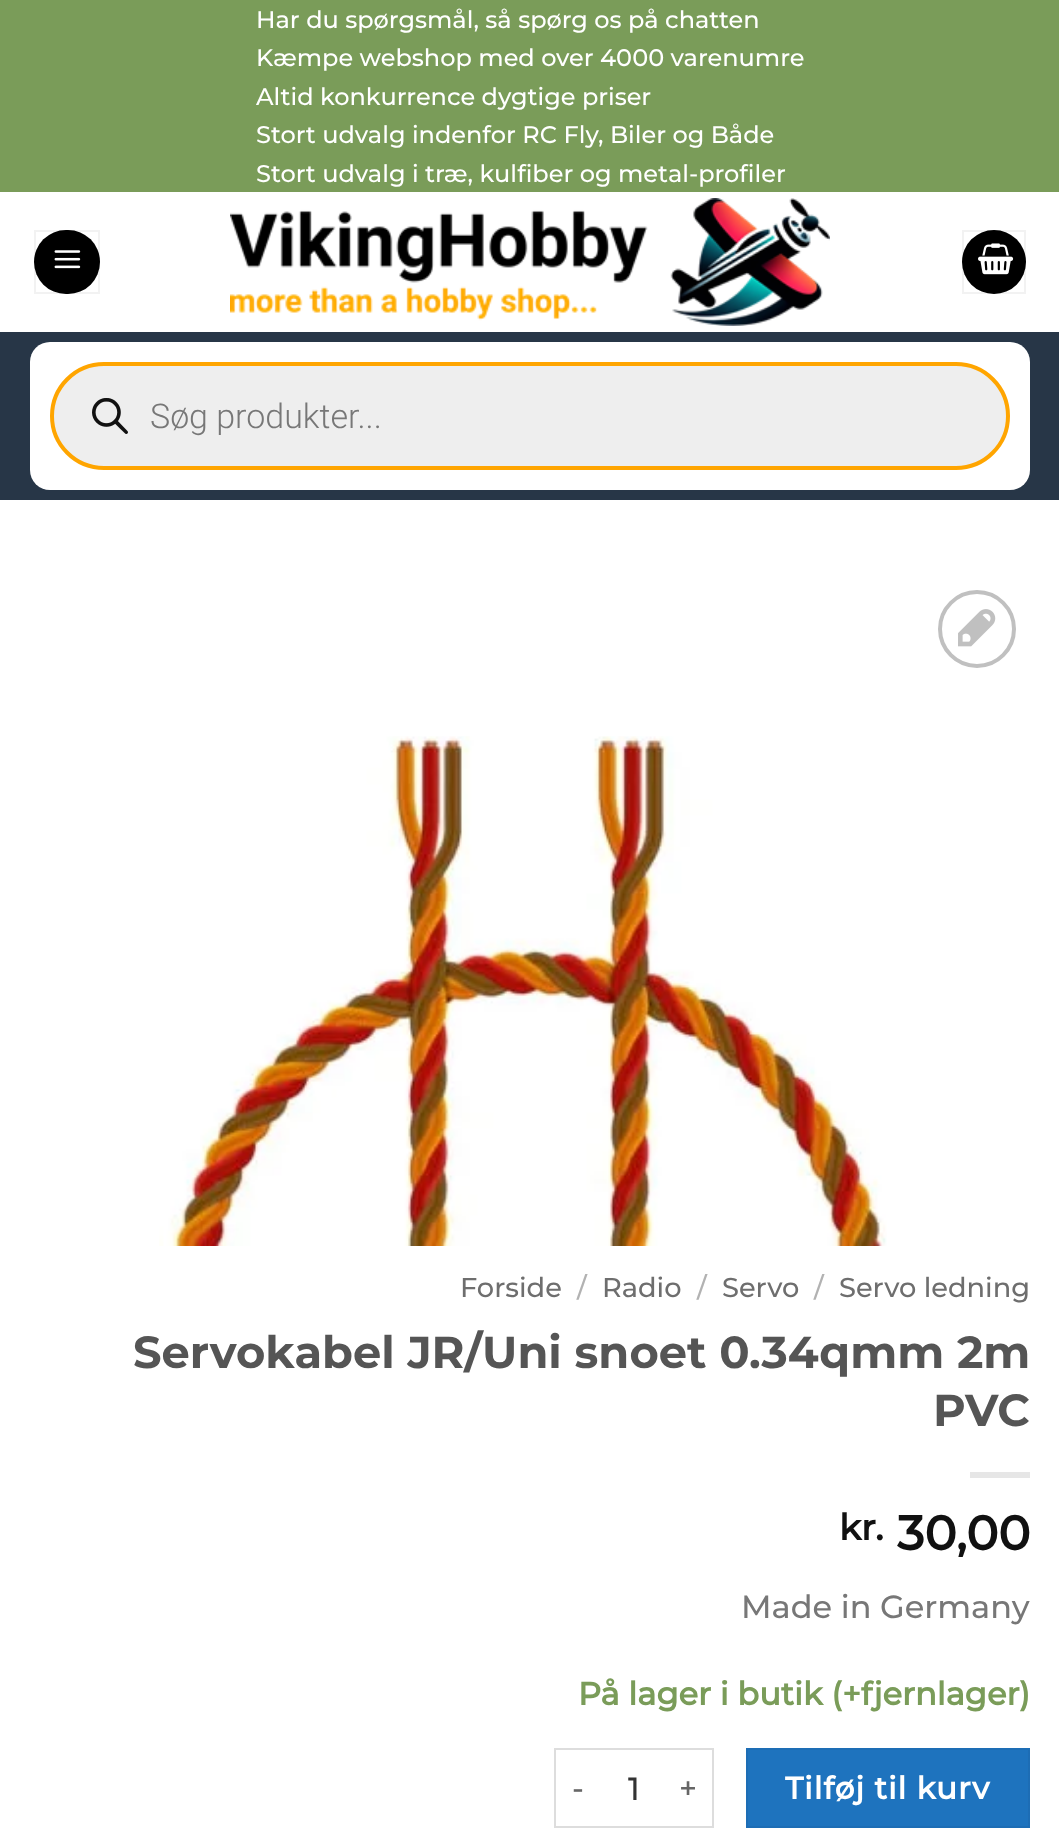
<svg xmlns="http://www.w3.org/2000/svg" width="1059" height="1842">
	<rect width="100%" height="100%" fill="#FFFFFF" />
	<rect x="0" y="0" width="1059" height="192" fill="#7A9C59" />
	<g font-family="Montserrat" font-size="24" font-weight="500" fill="#FFFFFF">
		<text x="256" y="28">Har du spørgsmål, så spørg os på chatten</text>
		<text x="256" y="66">Kæmpe webshop med over 4000 varenumre</text>
		<text x="256" y="105">Altid konkurrence dygtige priser</text>
		<text x="256" y="143">Stort udvalg indenfor RC Fly, Biler og Både</text>
		<text x="256" y="182">Stort udvalg i træ, kulfiber og metal-profiler</text>
	</g>
	<rect x="34" y="230" width="66" height="64" rx="32" fill="#000000" />
	<rect x="35" y="231" width="64" height="62" fill="none" stroke="#000000" stroke-opacity="0.05" stroke-width="2" />
	<image x="54" y="250" width="27" height="19" href="assets/img1.png" />
	<image x="230" y="198" width="600" height="128" href="assets/img2.png" />
	<circle cx="994" cy="262" r="32" fill="#000000" />
	<rect x="963" y="231" width="62" height="62" fill="none" stroke="#000000" stroke-opacity="0.05" stroke-width="2" />
	<image x="978" y="243" width="36" height="32" href="assets/img3.png" />
	<rect x="0" y="332" width="1059" height="168" fill="#273647" />
	<rect x="30" y="342" width="1000" height="148" rx="20" fill="#FFFFFF" />
	<rect x="52" y="364" width="956" height="104" rx="52" fill="#EEEEEE" stroke="#FFA500" stroke-width="4" />
	<image x="92" y="398" width="36" height="36" href="assets/img4.png" />
	<text x="150" y="428" font-family="Roboto" font-size="34" font-weight="300" fill="#777777">Søg produkter...</text>
	<circle cx="977" cy="629" r="37" fill="none" stroke="#C0C0C0" stroke-width="4" />
	<image x="958" y="609" width="38" height="38" href="assets/img5.png" />
	<image x="159" y="736" width="728" height="510" href="assets/img6.png" />
	<text x="460" y="1297" font-family="Montserrat" font-size="27.25" font-weight="500" fill="#6E6E6E">Forside</text>
	<text x="577" y="1297" font-family="Montserrat" font-size="27.25" font-weight="500" fill="#B2B2B2">/</text>
	<text x="602" y="1297" font-family="Montserrat" font-size="27.25" font-weight="500" fill="#6E6E6E">Radio</text>
	<text x="697" y="1297" font-family="Montserrat" font-size="27.25" font-weight="500" fill="#B2B2B2">/</text>
	<text x="722" y="1297" font-family="Montserrat" font-size="27.25" font-weight="500" fill="#6E6E6E">Servo</text>
	<text x="814" y="1297" font-family="Montserrat" font-size="27.25" font-weight="500" fill="#B2B2B2">/</text>
	<text x="839" y="1297" font-family="Montserrat" font-size="27.25" font-weight="500" fill="#6E6E6E">Servo ledning</text>
	<g font-family="Montserrat" font-size="44.8" font-weight="700" fill="#555555">
		<text x="133" y="1368">Servokabel JR/Uni snoet 0.34qmm 2m</text>
		<text x="933" y="1426">PVC</text>
	</g>
	<rect x="970" y="1472" width="60" height="6" fill="#E6E6E6" />
	<text x="839" y="1540" font-family="'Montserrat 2'" font-size="36" font-weight="700" fill="#111111">kr.</text>
	<text x="897" y="1550" font-family="'Montserrat 2'" font-size="48" font-weight="700" fill="#111111">30,00</text>
	<text x="741" y="1618" font-family="Montserrat" font-size="32" font-weight="500" fill="#777777">Made in Germany</text>
	<text x="578" y="1705" font-family="'Montserrat 2'" font-size="32" font-weight="700" fill="#7A9C59">På lager i butik (+fjernlager)</text>
	<rect x="554" y="1748" width="160" height="2" fill="#DDDDDD" />
	<rect x="554" y="1826" width="112" height="2" fill="#DDDDDD" />
	<rect x="554" y="1748" width="2" height="80" fill="#DDDDDD" />
	<text x="572" y="1799" font-family="Montserrat" font-size="31" font-weight="500" letter-spacing="0.9" fill="#666666">-</text>
	<text x="628" y="1800" font-family="Montserrat" font-size="32" font-weight="500" fill="#333333">1</text>
	<rect x="712" y="1748" width="2" height="80" fill="#DDDDDD" />
	<rect x="666" y="1826" width="48" height="2" fill="#DDDDDD" />
	<text x="679" y="1799" font-family="Montserrat" font-size="31" font-weight="500" letter-spacing="0.9" fill="#666666">+</text>
	<rect x="747" y="1749" width="282" height="78" fill="#1E73BE" stroke="#1D6DB5" stroke-width="2" />
	<text x="785" y="1799" font-family="'Montserrat 2'" font-size="31" font-weight="700" letter-spacing="0.9" fill="#FFFFFF">Tilføj til kurv</text>
</svg>
